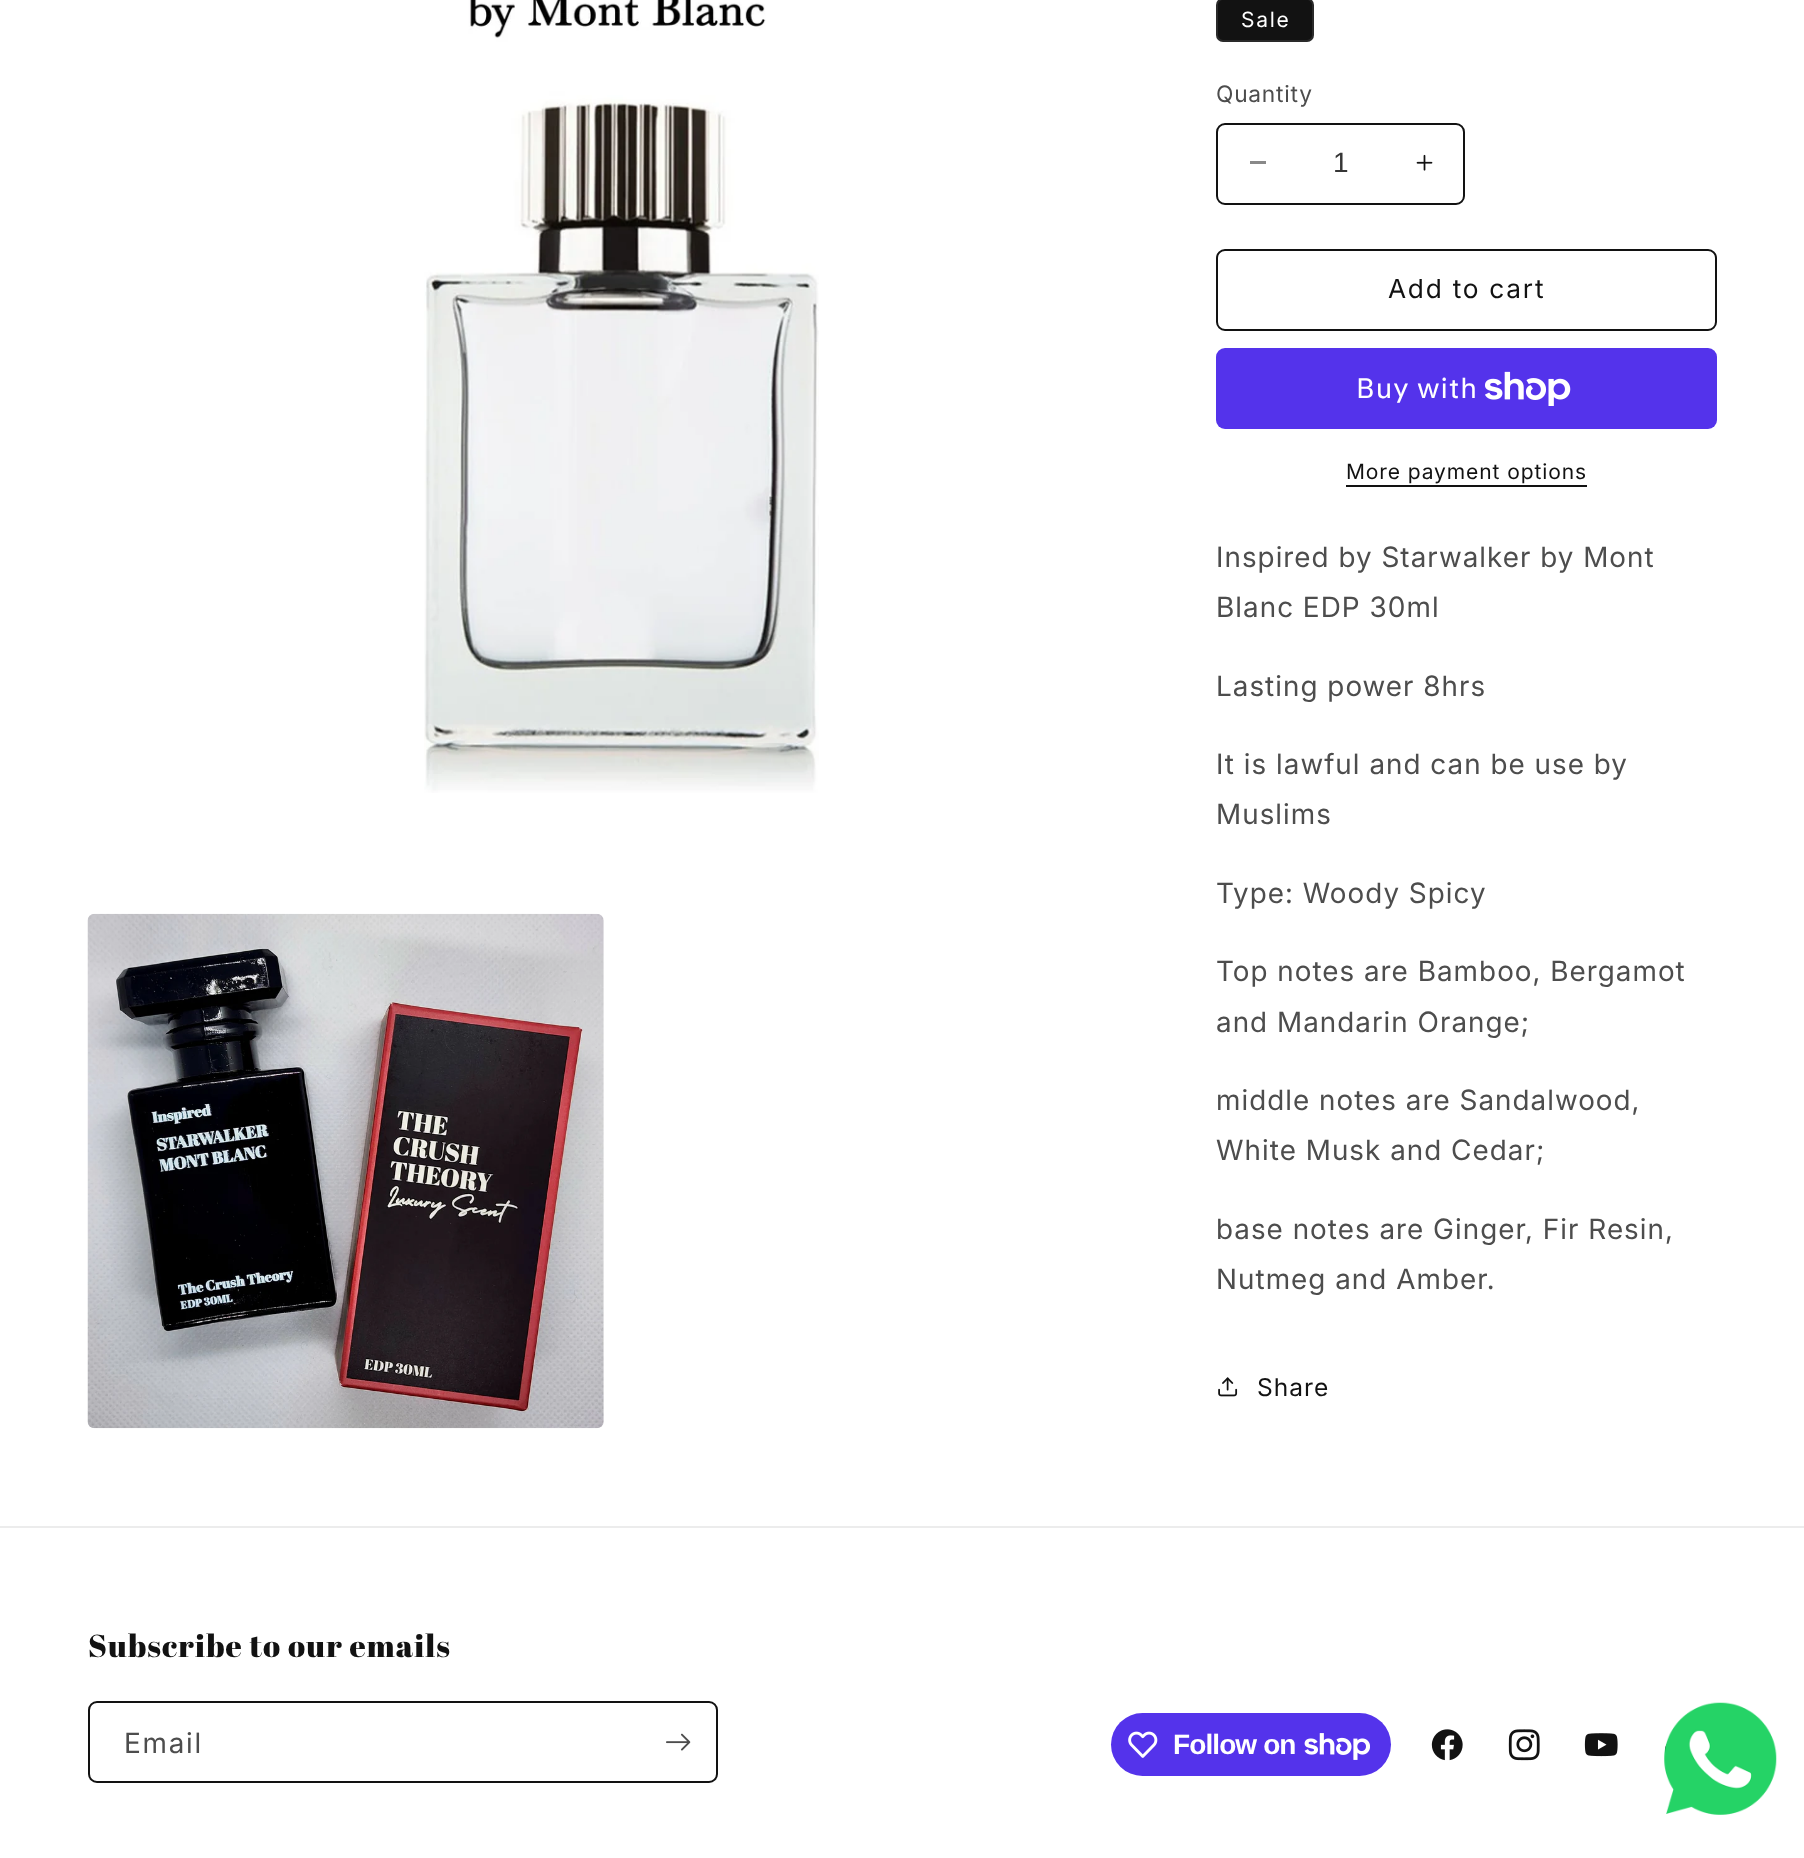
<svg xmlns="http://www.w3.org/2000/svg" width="1804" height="1858">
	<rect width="100%" height="100%" fill="#FFFFFF" />
	<image x="424" y="0" width="395" height="793" href="assets/img1.png" />
	<image x="87" y="913" width="517" height="516" href="assets/img2.png" />
	<rect x="1216" y="-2" width="98" height="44" rx="7" fill="#121212" />
	<rect x="1217" y="-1" width="96" height="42" rx="6" fill="none" stroke="#FFFFFF" stroke-opacity="0.1" stroke-width="2" />
	<text x="1241" y="27" font-family="Inter" font-size="21" letter-spacing="1.75" fill="#FFFFFF">Sale</text>
	<text x="1216" y="102" font-family="Inter" font-size="22.75" letter-spacing="0.75" fill="#4D4D4D">Quantity</text>
	<rect x="1250" y="161" width="16" height="3" fill="#898989" />
	<image x="1416" y="154" width="17" height="17" href="assets/img3.png" />
	<rect x="1217" y="124" width="247" height="80" rx="8" fill="none" stroke="#121212" stroke-width="2" />
	<text x="1333" y="172" font-family="Liberation Sans" font-size="28" fill="#363636">1</text>
	<rect x="1217" y="250" width="499" height="80" rx="8" fill="none" stroke="#121212" stroke-width="2" />
	<text x="1388" y="298" font-family="Inter" font-size="26.25" letter-spacing="1.75" fill="#121212">Add to cart</text>
	<rect x="1216" y="348" width="501" height="81" rx="9" fill="#5433EB" />
	<text x="1356" y="398" font-family="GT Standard" font-size="28" letter-spacing="1.05" fill="#FFFFFF">Buy with</text>
	<image x="1485" y="371" width="86" height="35" href="assets/img4.png" />
	<text x="1346" y="479" font-family="Inter" font-size="21" letter-spacing="0.9" fill="#121212">More payment options</text>
	<rect x="1346" y="485" width="241" height="2" fill="#121212" />
	<g font-family="'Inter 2'" font-size="28" letter-spacing="1.05" fill="#4D4D4D">
		<text x="1216" y="567">Inspired by Starwalker by Mont</text>
		<text x="1216" y="617">Blanc EDP 30ml</text>
		<text x="1216" y="696">Lasting power 8hrs</text>
		<text x="1216" y="774">It is lawful and can be use by</text>
		<text x="1216" y="824">Muslims</text>
		<text x="1216" y="903">Type: Woody Spicy</text>
		<text x="1216" y="981">Top notes are Bamboo, Bergamot</text>
		<text x="1216" y="1032">and Mandarin Orange;</text>
		<text x="1216" y="1110">middle notes are Sandalwood,</text>
		<text x="1216" y="1160">White Musk and Cedar;</text>
		<text x="1216" y="1239">base notes are Ginger, Fir Resin,</text>
		<text x="1216" y="1289">Nutmeg and Amber.</text>
	</g>
	<image x="1218" y="1377" width="20" height="20" href="assets/img5.png" />
	<text x="1257" y="1396" font-family="Inter" font-size="24.5" letter-spacing="1.05" fill="#121212">Share</text>
	<rect x="0" y="1526" width="1804" height="2" fill="#ECECEC" />
	<text x="88" y="1657" font-family="Abril Fatface" font-size="31.5" letter-spacing="1.05" fill="#121212">Subscribe to our emails</text>
	<rect x="89" y="1702" width="628" height="80" rx="8" fill="none" stroke="#121212" stroke-width="2" />
	<text x="124" y="1753" font-family="'Inter 2'" font-size="28" letter-spacing="1.75" fill="#4D4D4D">Email</text>
	<image x="666" y="1733" width="25" height="18" href="assets/img6.png" />
	<rect x="1111" y="1713" width="280" height="63" rx="31.5" fill="#5433EB" />
	<image x="1128" y="1731" width="30" height="27" href="assets/img7.png" />
	<text x="1173" y="1754" font-family="Liberation Sans" font-size="28" font-weight="700" letter-spacing="-0.9" fill="#FFFFFF">Follow on</text>
	<image x="1304" y="1733" width="66" height="27" href="assets/img8.png" />
	<image x="1431" y="1729" width="32" height="32" href="assets/img9.png" />
	<image x="1508" y="1729" width="32" height="32" href="assets/img10.png" />
	<image x="1584" y="1733" width="34" height="24" href="assets/img11.png" />
	<image x="1665" y="1744" width="2" height="10" href="assets/img12.png" />
	<image x="1664" y="1702" width="113" height="113" href="assets/img13.png" />
</svg>
